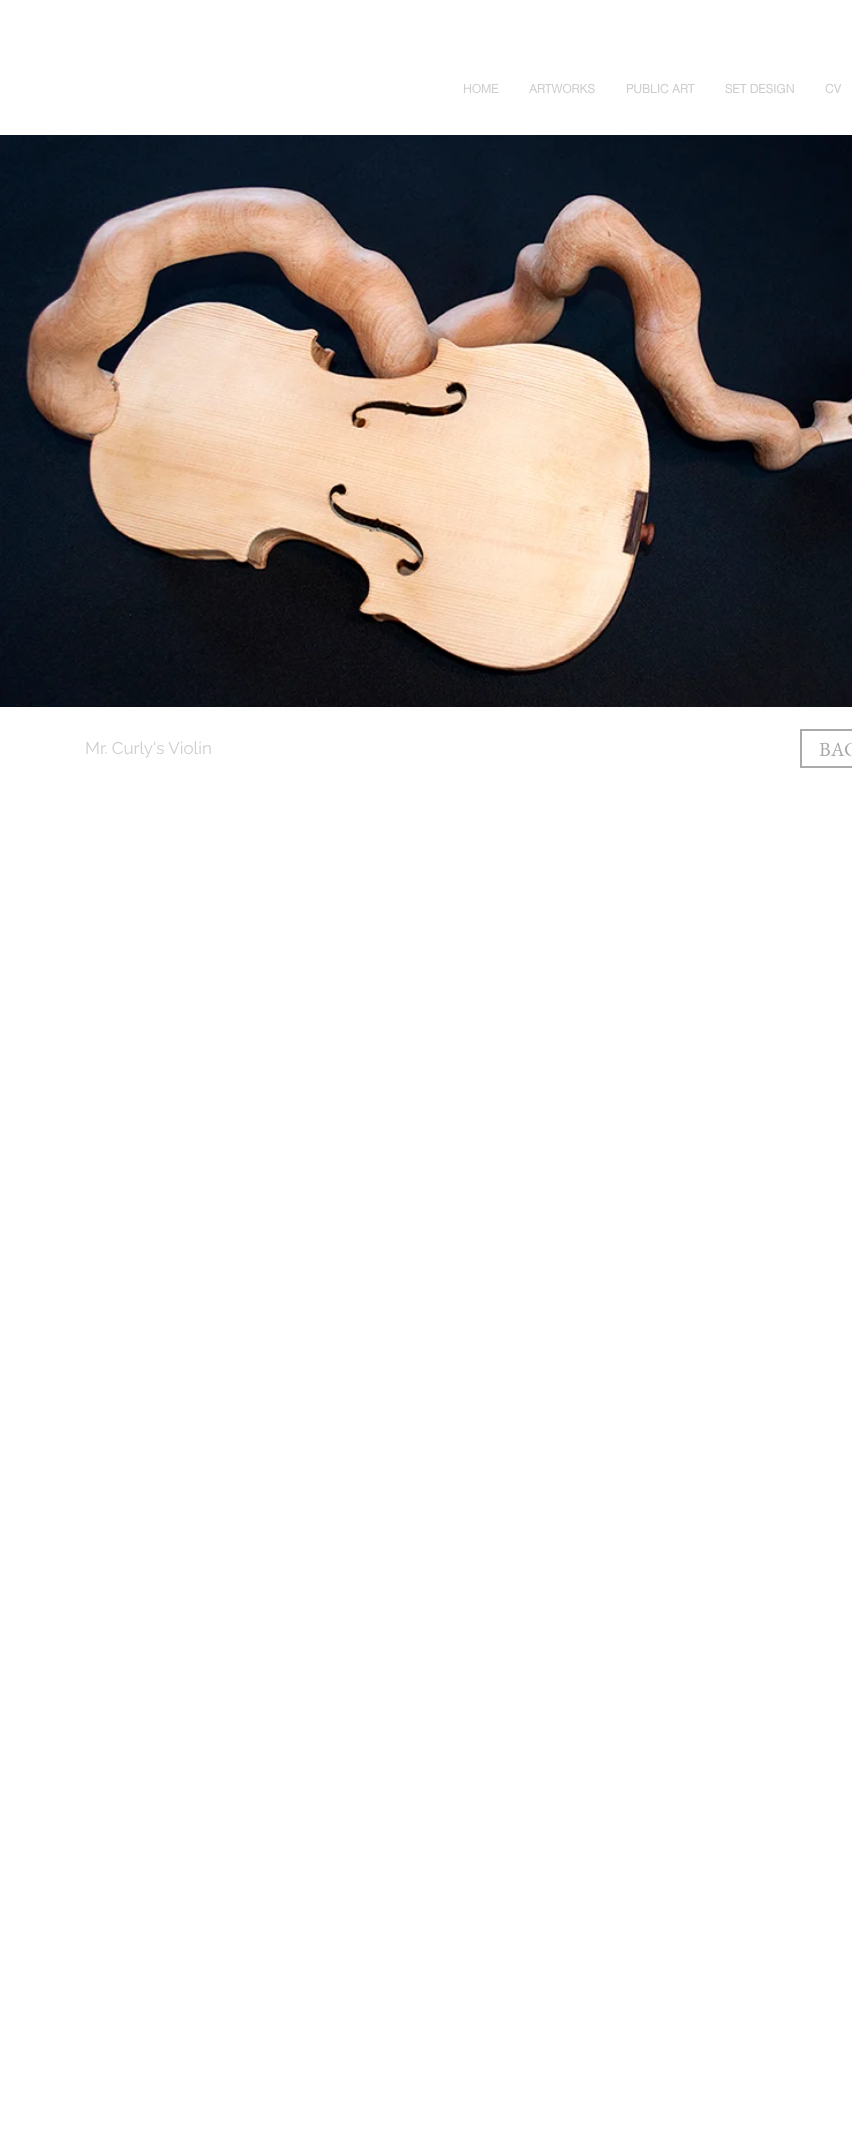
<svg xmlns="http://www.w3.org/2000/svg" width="852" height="2141">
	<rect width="100%" height="100%" fill="#FFFFFF" />
	<g font-family="helvetica" font-size="12" font-weight="700" fill="#CECECE">
		<text x="463" y="93">HOME</text>
		<text x="529" y="93">ARTWORKS</text>
		<text x="626" y="93">PUBLIC ART</text>
		<text x="725" y="93">SET DESIGN</text>
		<text x="825" y="93">CV</text>
	</g>
	<image x="0" y="135" width="852" height="572" href="assets/img1.png" />
	<text x="85" y="754" font-family="Raleway" font-size="17" fill="#CECECE">Mr. Curly's Violin</text>
	<rect x="801" y="730" width="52" height="37" fill="none" stroke="#AAAAAA" stroke-width="2" />
	<text x="819" y="756" font-family="EB Garamond" font-size="20" fill="#AAAAAA">BAC</text>
</svg>
